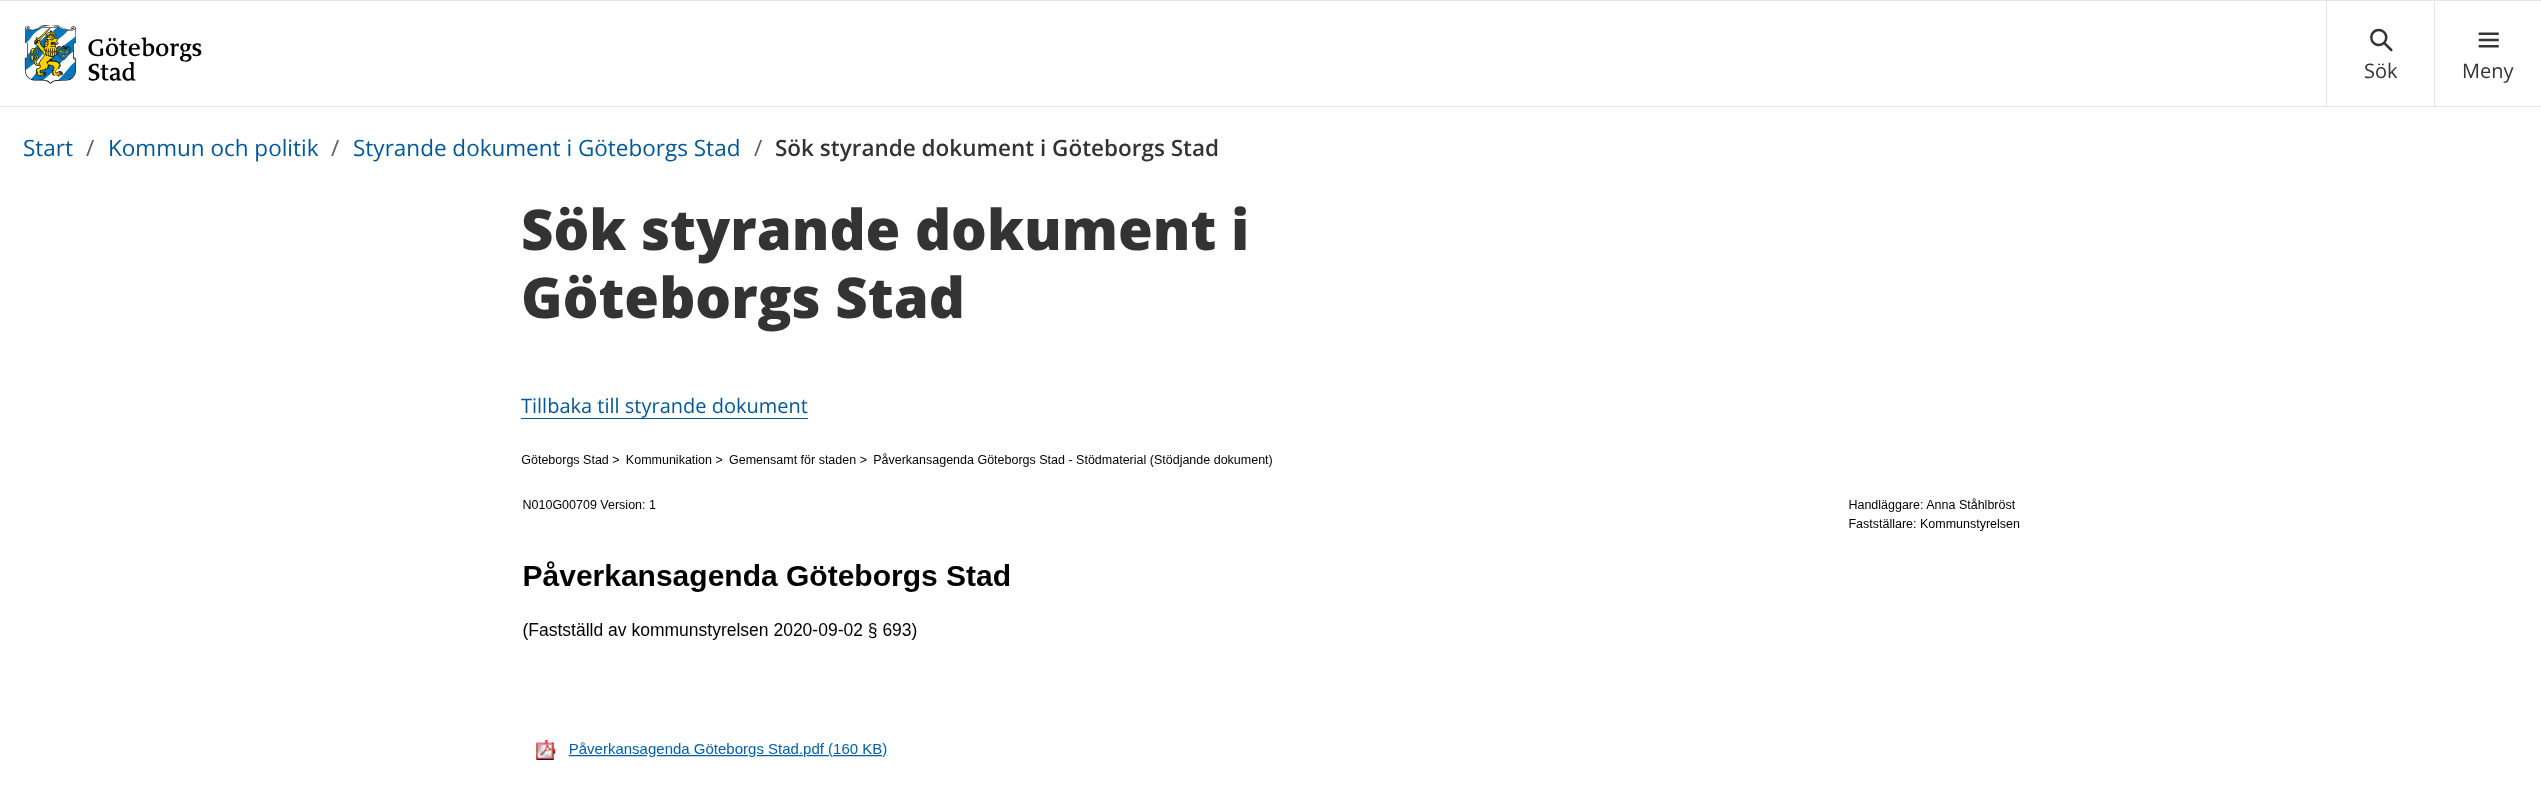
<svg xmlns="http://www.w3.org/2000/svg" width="2541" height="797">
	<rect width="100%" height="100%" fill="#FFFFFF" />
	<rect x="0" y="0" width="2541" height="1" fill="#E5E5E5" />
	<rect x="0" y="106" width="2541" height="1" fill="#E5E5E5" />
	<image x="24" y="25" width="178" height="59" href="assets/img1.png" />
	<rect x="2326" y="1" width="1" height="108" fill="#E5E5E5" />
	<image x="2370" y="28" width="23" height="24" href="assets/img2.png" />
	<text x="2364" y="78" font-family="Open Sans" font-size="20" fill="#333333">Sök</text>
	<rect x="2434" y="1" width="1" height="108" fill="#E5E5E5" />
	<image x="2478" y="32" width="21" height="16" href="assets/img3.png" />
	<text x="2462" y="78" font-family="Open Sans" font-size="20" fill="#333333">Meny</text>
	<rect x="2326" y="108" width="109" height="1" fill="#FFFFFF" />
	<text x="23" y="156" font-family="Open Sans" font-size="22.5" fill="#005799">Start</text>
	<text x="86" y="156" font-family="Open Sans" font-size="22.5" fill="#595959">/</text>
	<text x="108" y="156" font-family="Open Sans" font-size="22.5" fill="#005799">Kommun och politik</text>
	<text x="331" y="156" font-family="Open Sans" font-size="22.5" fill="#595959">/</text>
	<text x="353" y="156" font-family="Open Sans" font-size="22.5" fill="#005799">Styrande dokument i Göteborgs Stad</text>
	<text x="754" y="156" font-family="Open Sans" font-size="22.5" fill="#595959">/</text>
	<text x="775" y="156" font-family="Open Sans" font-size="22.5" font-weight="600" fill="#333333">Sök styrande dokument i Göteborgs Stad</text>
	<g font-family="Open Sans" font-size="56.25" font-weight="800" fill="#333333">
		<text x="521" y="250">Sök styrande dokument i</text>
		<text x="521" y="318">Göteborgs Stad</text>
	</g>
	<text x="521" y="413" font-family="Open Sans" font-size="20" fill="#005799">Tillbaka till styrande dokument</text>
	<rect x="521" y="418" width="287" height="1" fill="#005799" />
	<image x="521" y="453" width="1499" height="307" href="assets/img4.png" />
</svg>
